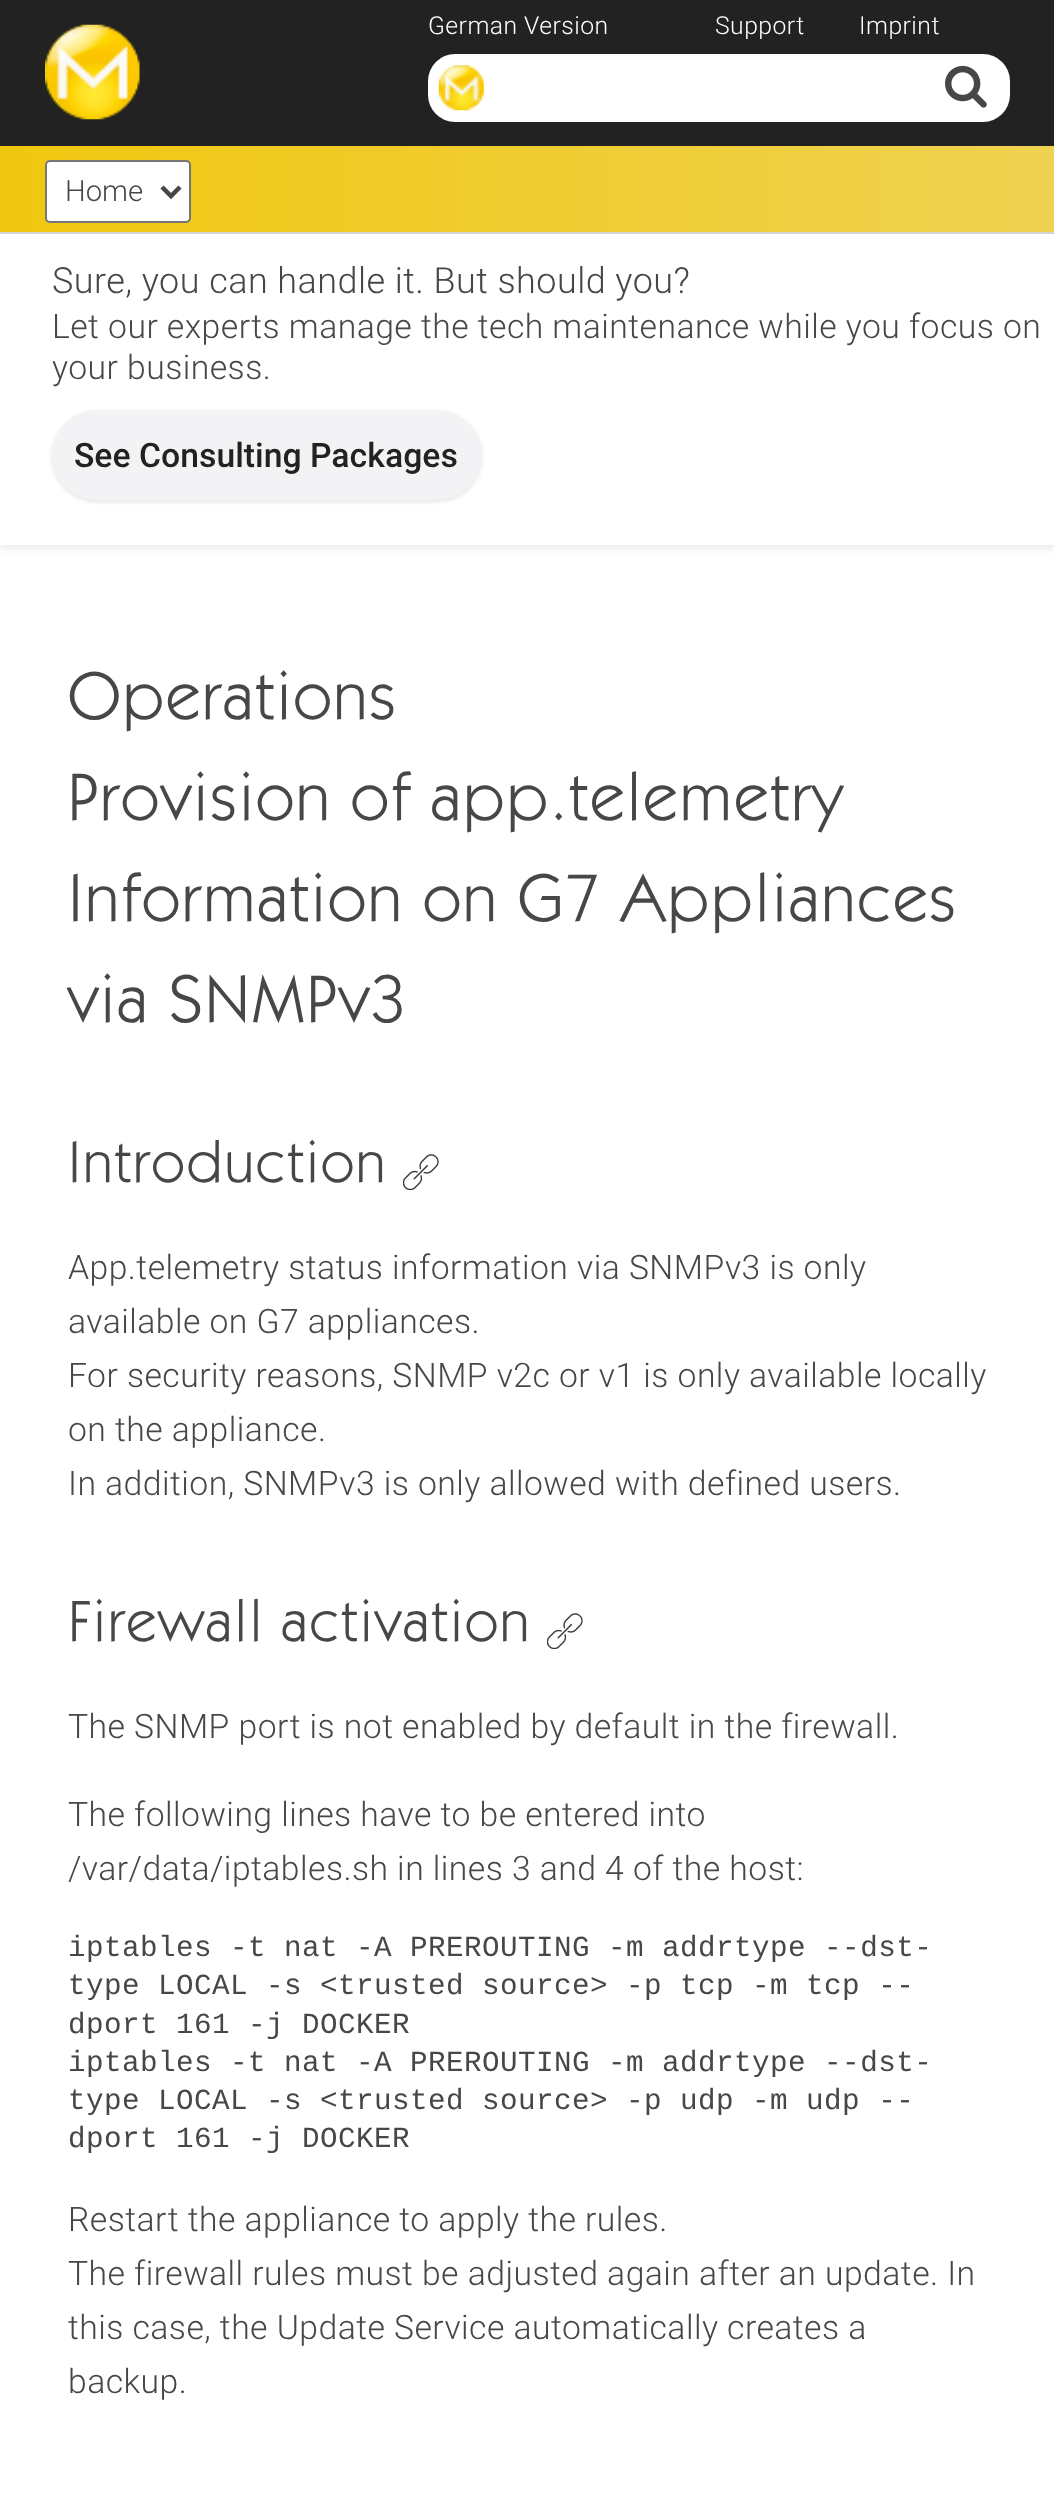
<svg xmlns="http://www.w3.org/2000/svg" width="1054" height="2504">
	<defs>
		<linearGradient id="g1" gradientUnits="userSpaceOnUse" x1="0" y1="189" x2="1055" y2="189"><stop offset="0" stop-color="#F0C70F" /><stop offset="1" stop-color="#EFD251" /></linearGradient>
		<clipPath id="clip1"><path d="M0 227H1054V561H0ZM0 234H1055V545H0Z" clip-rule="evenodd" /></clipPath>
	</defs>
	<rect width="100%" height="100%" fill="#FFFFFF" />
	<rect x="0" y="0" width="1054" height="146" fill="#222222" />
	<image x="45" y="24" width="95" height="96" href="assets/img1.png" />
	<g font-family="Roboto" font-size="24.75" font-weight="300" letter-spacing="0.45" fill="#FFFFFF">
		<text x="428" y="34">German Version</text>
		<text x="715" y="34">Support</text>
		<text x="859" y="34">Imprint</text>
	</g>
	<rect x="428" y="54" width="582" height="68" rx="27" fill="#FFFFFF" />
	<image x="438" y="65" width="46" height="46" href="assets/img2.png" />
	<image x="945" y="65" width="42" height="43" href="assets/img3.png" />
	<rect x="0" y="146" width="1054" height="86" fill="url(#g1)" />
	<rect x="0" y="232" width="1054" height="2" fill="#D3D3D3" />
	<rect x="46" y="161" width="144" height="61" rx="4" fill="#FFFFFF" stroke="#767676" stroke-width="2" />
	<path d="M162 187L171 196L180 187" fill="none" stroke="#474747" stroke-width="4.5" />
	<text x="65" y="201" font-family="Roboto" font-size="29.25" font-weight="300" fill="#474747">Home</text>
	<g clip-path="url(#clip1)">
		<rect x="0" y="239" width="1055" height="310" fill="#000000" fill-opacity="0.08" filter="blur(3.5px)" />
	</g>
	<text x="52" y="293" font-family="Roboto" font-size="36" font-weight="300" letter-spacing="0.45" fill="#474747">Sure, you can handle it. But should you?</text>
	<g font-family="Roboto" font-size="33.75" font-weight="300" letter-spacing="0.45" fill="#474747">
		<text x="52" y="338">Let our experts manage the tech maintenance while you focus on</text>
		<text x="52" y="379">your business.</text>
	</g>
	<rect x="52" y="412" width="430" height="90" rx="45" fill="#000000" fill-opacity="0.1" filter="blur(2px)" />
	<rect x="52" y="410" width="430" height="90" rx="45" fill="#F3F3F6" />
	<text x="74" y="467" font-family="Roboto" font-size="33.75" font-weight="500" fill="#222222">See Consulting Packages</text>
	<g font-family="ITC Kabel" font-size="67.5" letter-spacing="2.25" fill="#474747">
		<text x="68" y="719">Operations</text>
		<text x="68" y="820">Provision of app.telemetry</text>
		<text x="68" y="921">Information on G7 Appliances</text>
		<text x="68" y="1022">via SNMPv3</text>
	</g>
	<text x="68" y="1182" font-family="ITC Kabel" font-size="58.5" letter-spacing="2.25" fill="#474747">Introduction</text>
	<image x="403" y="1154" width="36" height="36" href="assets/img4.png" />
	<g font-family="Roboto" font-size="33.75" font-weight="300" letter-spacing="0.45" fill="#474747">
		<text x="68" y="1279">App.telemetry status information via SNMPv3 is only</text>
		<text x="68" y="1333">available on G7 appliances.</text>
		<text x="68" y="1387">For security reasons, SNMP v2c or v1 is only available locally</text>
		<text x="68" y="1441">on the appliance.</text>
		<text x="68" y="1495">In addition, SNMPv3 is only allowed with defined users.</text>
	</g>
	<text x="68" y="1641" font-family="ITC Kabel" font-size="58.5" letter-spacing="2.25" fill="#474747">Firewall activation</text>
	<image x="547" y="1613" width="36" height="36" href="assets/img4.png" />
	<g font-family="Roboto" font-size="33.75" font-weight="300" letter-spacing="0.45" fill="#474747">
		<text x="68" y="1738">The SNMP port is not enabled by default in the firewall.</text>
		<text x="68" y="1826">The following lines have to be entered into</text>
		<text x="68" y="1880">/var/data/iptables.sh in lines 3 and 4 of the host:</text>
	</g>
	<g font-family="Liberation Mono" font-size="29.25" letter-spacing="0.45" fill="#474747">
		<text x="68" y="1956">iptables -t nat -A PREROUTING -m addrtype --dst-</text>
		<text x="68" y="1994">type LOCAL -s &lt;trusted source&gt; -p tcp -m tcp --</text>
		<text x="68" y="2033">dport 161 -j DOCKER</text>
		<text x="68" y="2071">iptables -t nat -A PREROUTING -m addrtype --dst-</text>
		<text x="68" y="2109">type LOCAL -s &lt;trusted source&gt; -p udp -m udp --</text>
		<text x="68" y="2147">dport 161 -j DOCKER</text>
	</g>
	<g font-family="Roboto" font-size="33.75" font-weight="300" letter-spacing="0.45" fill="#474747">
		<text x="68" y="2231">Restart the appliance to apply the rules.</text>
		<text x="68" y="2285">The firewall rules must be adjusted again after an update. In</text>
		<text x="68" y="2339">this case, the Update Service automatically creates a</text>
		<text x="68" y="2393">backup.</text>
	</g>
</svg>
